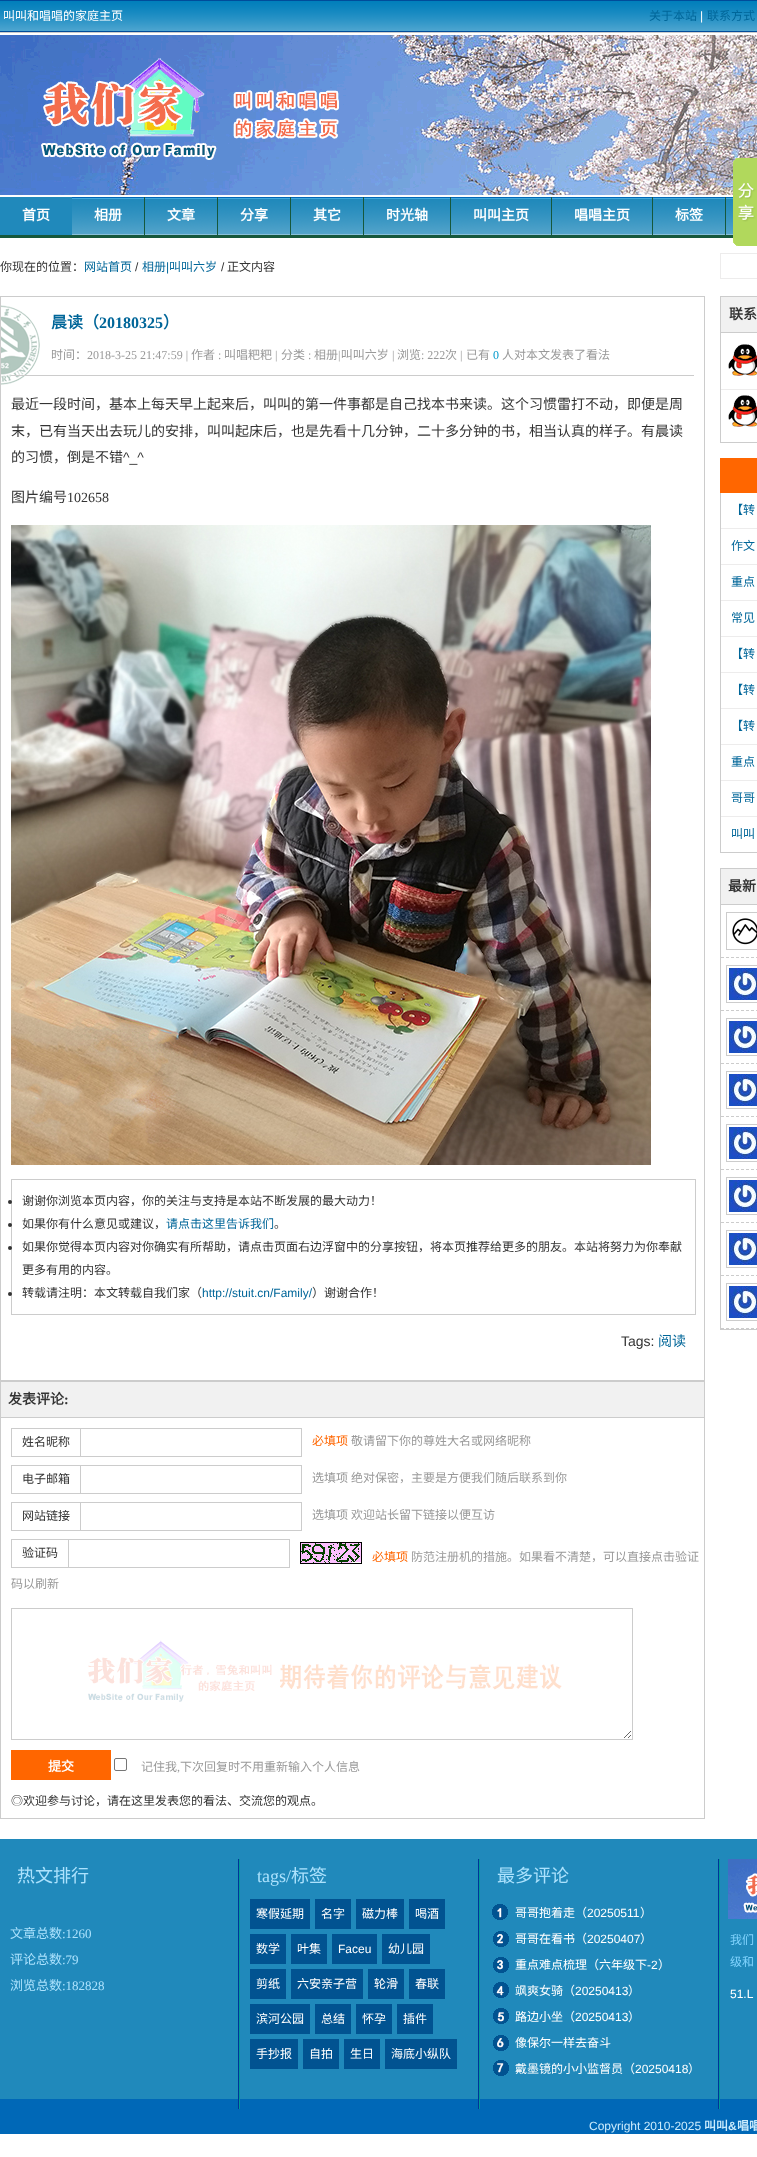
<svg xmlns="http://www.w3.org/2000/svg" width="757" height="2157">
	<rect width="100%" height="100%" fill="#FFFFFF" />
	<image x="0" y="0" width="757" height="32" href="assets/img1.png" />
	<rect x="0" y="32" width="757" height="1" fill="#CCCCCC" />
	<text x="3" y="20" font-family="Noto Sans CJK SC" font-size="12" fill="#FFFFFF">叫叫和唱唱的家庭主页</text>
	<text x="649" y="20" font-family="Noto Sans CJK SC" font-size="12" fill="#006699">关于本站</text>
	<text x="700" y="20" font-family="Liberation Sans" font-size="12" fill="#FFFFFF">|</text>
	<text x="707" y="20" font-family="Noto Sans CJK SC" font-size="12" fill="#006699">联系方式</text>
	<image x="0" y="35" width="757" height="160" href="assets/img2.png" />
	<image x="72" y="197" width="661" height="38" href="assets/img3.png" />
	<rect x="0" y="235" width="733" height="3" fill="#16583C" />
	<rect x="0" y="197" width="72" height="38" fill="#2089BB" />
	<text x="22" y="220" font-family="Noto Sans CJK SC" font-size="14" font-weight="700" fill="#FFFFFF">首页</text>
	<rect x="144" y="197" width="1" height="38" fill="#16583C" />
	<text x="94" y="220" font-family="Noto Sans CJK SC" font-size="14" font-weight="700" fill="#FFFFFF">相册</text>
	<rect x="217" y="197" width="1" height="38" fill="#16583C" />
	<text x="167" y="220" font-family="Noto Sans CJK SC" font-size="14" font-weight="700" fill="#FFFFFF">文章</text>
	<rect x="290" y="197" width="1" height="38" fill="#16583C" />
	<text x="240" y="220" font-family="Noto Sans CJK SC" font-size="14" font-weight="700" fill="#FFFFFF">分享</text>
	<rect x="363" y="197" width="1" height="38" fill="#16583C" />
	<text x="313" y="220" font-family="Noto Sans CJK SC" font-size="14" font-weight="700" fill="#FFFFFF">其它</text>
	<rect x="450" y="197" width="1" height="38" fill="#16583C" />
	<text x="386" y="220" font-family="Noto Sans CJK SC" font-size="14" font-weight="700" fill="#FFFFFF">时光轴</text>
	<rect x="551" y="197" width="1" height="38" fill="#16583C" />
	<text x="473" y="220" font-family="Noto Sans CJK SC" font-size="14" font-weight="700" fill="#FFFFFF">叫叫主页</text>
	<rect x="652" y="197" width="1" height="38" fill="#16583C" />
	<text x="574" y="220" font-family="Noto Sans CJK SC" font-size="14" font-weight="700" fill="#FFFFFF">唱唱主页</text>
	<rect x="725" y="197" width="1" height="38" fill="#16583C" />
	<text x="675" y="220" font-family="Noto Sans CJK SC" font-size="14" font-weight="700" fill="#FFFFFF">标签</text>
	<image x="733" y="158" width="24" height="88" href="assets/img4.png" />
	<text x="0" y="271" font-family="Noto Sans CJK SC" font-size="12" fill="#333333">你现在的位置：</text>
	<text x="84" y="271" font-family="Noto Sans CJK SC" font-size="12" fill="#006699">网站首页</text>
	<text x="135" y="271" font-family="Liberation Sans" font-size="12" fill="#333333">/</text>
	<text x="142" y="271" font-family="Noto Sans CJK SC" font-size="12" fill="#006699">相册</text>
	<text x="166" y="271" font-family="Liberation Sans" font-size="12" fill="#006699">|</text>
	<text x="169" y="271" font-family="Noto Sans CJK SC" font-size="12" fill="#006699">叫叫六岁</text>
	<text x="221" y="271" font-family="Liberation Sans" font-size="12" fill="#333333">/</text>
	<text x="227" y="271" font-family="Noto Sans CJK SC" font-size="12" fill="#333333">正文内容</text>
	<rect x="720.5" y="253.5" width="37" height="25" fill="none" stroke="#EDECEC" />
	<image x="1" y="305" width="39" height="80" href="assets/img5.png" />
	<rect x="0.5" y="296.5" width="704" height="1084" fill="none" stroke="#CCCCCC" />
	<rect x="11" y="375" width="683" height="1" fill="#CCCCCC" />
	<text x="51" y="328" font-family="Noto Sans CJK SC" font-size="16" font-weight="700" fill="#006699">晨读（</text>
	<text x="99" y="328" font-family="Liberation Serif" font-size="16" font-weight="700" fill="#006699">20180325</text>
	<text x="163" y="328" font-family="Noto Sans CJK SC" font-size="16" font-weight="700" fill="#006699">）</text>
	<text x="51" y="359" font-family="Noto Sans CJK SC" font-size="12" fill="#999999">时间：</text>
	<text x="87" y="359" font-family="Liberation Serif" font-size="12" fill="#999999">2018-3-25 21:47:59 |</text>
	<g font-family="Noto Sans CJK SC" font-size="12" fill="#999999">
		<text x="191" y="359">作者</text>
		<text x="224" y="359">叫唱粑粑</text>
	</g>
	<text x="275" y="359" font-family="Liberation Serif" font-size="12" fill="#999999">|</text>
	<g font-family="Noto Sans CJK SC" font-size="12" fill="#999999">
		<text x="281" y="359">分类</text>
		<text x="314" y="359">相册 叫叫六岁</text>
		<text x="397" y="359">浏览</text>
		<text x="445" y="359">次</text>
		<text x="466" y="359">已有</text>
		<text x="502" y="359">人对本文发表了看法</text>
	</g>
	<g font-family="Liberation Serif" font-size="12" fill="#999999">
		<text x="218" y="359">:</text>
		<text x="308" y="359">:</text>
		<text x="338" y="359">|</text>
		<text x="392" y="359">|</text>
		<text x="421" y="359">: 222</text>
		<text x="460" y="359">|</text>
	</g>
	<text x="493" y="359" font-family="Liberation Serif" font-size="12" fill="#0099CC">0</text>
	<g font-family="Noto Sans CJK SC" font-size="14" fill="#333333">
		<text x="11" y="409">最近一段时间，基本上每天早上起来后，叫叫的第一件事都是自己找本书来读。这个习惯雷打不动，即便是周</text>
		<text x="11" y="436">末，已有当天出去玩儿的安排，叫叫起床后，也是先看十几分钟，二十多分钟的书，相当认真的样子。有晨读</text>
		<text x="11" y="462">的习惯，倒是不错</text>
	</g>
	<text x="123" y="462" font-family="Liberation Sans" font-size="14" fill="#333333">^_^</text>
	<text x="11" y="502" font-family="Noto Sans CJK SC" font-size="14" fill="#333333">图片编号</text>
	<text x="67" y="502" font-family="Liberation Serif" font-size="14" fill="#333333">102658</text>
	<image x="11" y="525" width="640" height="640" href="assets/img6.png" />
	<rect x="11.5" y="1179.5" width="684" height="135" fill="none" stroke="#CCCCCC" />
	<circle cx="10" cy="1202" r="2" fill="#333333" />
	<text x="22" y="1205" font-family="Noto Sans CJK SC" font-size="12" fill="#333333">谢谢你浏览本页内容，你的关注与支持是本站不断发展的最大动力！</text>
	<circle cx="10" cy="1225" r="2" fill="#333333" />
	<text x="22" y="1228" font-family="Noto Sans CJK SC" font-size="12" fill="#333333">如果你有什么意见或建议，</text>
	<text x="166" y="1228" font-family="Noto Sans CJK SC" font-size="12" fill="#006699">请点击这里告诉我们</text>
	<text x="274" y="1228" font-family="Noto Sans CJK SC" font-size="12" fill="#333333">。</text>
	<circle cx="10" cy="1248" r="2" fill="#333333" />
	<g font-family="Noto Sans CJK SC" font-size="12" fill="#333333">
		<text x="22" y="1251">如果你觉得本页内容对你确实有所帮助，请点击页面右边浮窗中的分享按钮，将本页推荐给更多的朋友。本站将努力为你奉献</text>
		<text x="22" y="1274">更多有用的内容。</text>
	</g>
	<circle cx="10" cy="1294" r="2" fill="#333333" />
	<text x="22" y="1297" font-family="Noto Sans CJK SC" font-size="12" fill="#333333">转载请注明：本文转载自我们家（</text>
	<text x="202" y="1297" font-family="Liberation Sans" font-size="12" fill="#006699">http://stuit.cn/Family/</text>
	<text x="312" y="1297" font-family="Noto Sans CJK SC" font-size="12" fill="#333333">）谢谢合作！</text>
	<text x="621" y="1346" font-family="Liberation Sans" font-size="14" fill="#333333">Tags:</text>
	<text x="658" y="1346" font-family="Noto Sans CJK SC" font-size="14" fill="#006699">阅读</text>
	<rect x="0.5" y="1381.5" width="704" height="437" fill="none" stroke="#CCCCCC" />
	<rect x="1" y="1382" width="703" height="35" fill="#F1F1F1" />
	<rect x="1" y="1417" width="703" height="1" fill="#CCCCCC" />
	<text x="8" y="1404" font-family="Noto Sans CJK SC" font-size="14" font-weight="700" fill="#333333">发表评论</text>
	<text x="64" y="1404" font-family="Liberation Serif" font-size="14" font-weight="700" fill="#333333">:</text>
	<rect x="11" y="1428" width="69" height="1" fill="#CCCCCC" />
	<rect x="11" y="1456" width="69" height="1" fill="#CCCCCC" />
	<rect x="11" y="1428" width="1" height="29" fill="#CCCCCC" />
	<text x="22" y="1446" font-family="Noto Sans CJK SC" font-size="12" fill="#333333">姓名昵称</text>
	<rect x="80.5" y="1428.5" width="221" height="28" fill="none" stroke="#CCCCCC" />
	<text x="312" y="1445" font-family="Noto Sans CJK SC" font-size="12" fill="#FF6600">必填项</text>
	<text x="351" y="1445" font-family="Noto Sans CJK SC" font-size="12" fill="#999999">敬请留下你的尊姓大名或网络昵称</text>
	<rect x="11" y="1465" width="69" height="1" fill="#CCCCCC" />
	<rect x="11" y="1493" width="69" height="1" fill="#CCCCCC" />
	<rect x="11" y="1465" width="1" height="29" fill="#CCCCCC" />
	<text x="22" y="1483" font-family="Noto Sans CJK SC" font-size="12" fill="#333333">电子邮箱</text>
	<rect x="80.5" y="1465.5" width="221" height="28" fill="none" stroke="#CCCCCC" />
	<g font-family="Noto Sans CJK SC" font-size="12" fill="#999999">
		<text x="312" y="1482">选填项</text>
		<text x="351" y="1482">绝对保密，主要是方便我们随后联系到你</text>
	</g>
	<rect x="11" y="1502" width="69" height="1" fill="#CCCCCC" />
	<rect x="11" y="1530" width="69" height="1" fill="#CCCCCC" />
	<rect x="11" y="1502" width="1" height="29" fill="#CCCCCC" />
	<text x="22" y="1520" font-family="Noto Sans CJK SC" font-size="12" fill="#333333">网站链接</text>
	<rect x="80.5" y="1502.5" width="221" height="28" fill="none" stroke="#CCCCCC" />
	<g font-family="Noto Sans CJK SC" font-size="12" fill="#999999">
		<text x="312" y="1519">选填项</text>
		<text x="351" y="1519">欢迎站长留下链接以便互访</text>
	</g>
	<rect x="68.5" y="1539.5" width="221" height="28" fill="none" stroke="#CCCCCC" />
	<rect x="300.5" y="1542.5" width="61" height="21" fill="none" stroke="#000000" />
	<rect x="11" y="1539" width="57" height="1" fill="#CCCCCC" />
	<rect x="11" y="1567" width="57" height="1" fill="#CCCCCC" />
	<rect x="11" y="1539" width="1" height="29" fill="#CCCCCC" />
	<text x="22" y="1557" font-family="Noto Sans CJK SC" font-size="12" fill="#333333">验证码</text>
	<image x="301" y="1543" width="60" height="20" href="assets/img7.png" />
	<text x="372" y="1561" font-family="Noto Sans CJK SC" font-size="12" fill="#FF6600">必填项</text>
	<g font-family="Noto Sans CJK SC" font-size="12" fill="#999999">
		<text x="411" y="1561">防范注册机的措施。如果看不清楚，可以直接点击验证</text>
		<text x="11" y="1588">码以刷新</text>
	</g>
	<image x="88" y="1640" width="543" height="98" href="assets/img8.png" />
	<rect x="11.5" y="1608.5" width="621" height="131" fill="none" stroke="#CCCCCC" />
	<rect x="11" y="1750" width="100" height="30" fill="#FF6600" />
	<text x="48" y="1771" font-family="Noto Sans CJK SC" font-size="13" font-weight="700" fill="#FFFFFF">提交</text>
	<rect x="114.5" y="1758.5" width="12" height="12" rx="1.5" fill="none" stroke="#767676" />
	<text x="141" y="1771" font-family="Noto Sans CJK SC" font-size="12" fill="#999999">记住我</text>
	<text x="177" y="1771" font-family="Liberation Serif" font-size="12" fill="#999999">,</text>
	<text x="180" y="1771" font-family="Noto Sans CJK SC" font-size="12" fill="#999999">下次回复时不用重新输入个人信息</text>
	<text x="11" y="1805" font-family="Noto Sans CJK SC" font-size="12" fill="#333333">◎欢迎参与讨论，请在这里发表您的看法、交流您的观点。</text>
	<rect x="720" y="296" width="37" height="147" fill="#CCCCCC" />
	<rect x="721" y="297" width="36" height="35" fill="#F1F1F1" />
	<text x="729" y="319" font-family="Noto Sans CJK SC" font-size="14" font-weight="700" fill="#333333">联系</text>
	<rect x="721" y="333" width="36" height="109" fill="#FFFFFF" />
	<image x="721" y="344" width="36" height="83" href="assets/img9.png" />
	<rect x="720" y="458" width="37" height="35" fill="#FF6600" />
	<rect x="720" y="852" width="37" height="1" fill="#CCCCCC" />
	<rect x="720" y="493" width="1" height="360" fill="#CCCCCC" />
	<rect x="721" y="528" width="36" height="1" fill="#EDECEC" />
	<text x="731" y="514" font-family="Noto Sans CJK SC" font-size="12" fill="#006699">【转</text>
	<rect x="721" y="564" width="36" height="1" fill="#EDECEC" />
	<text x="731" y="550" font-family="Noto Sans CJK SC" font-size="12" fill="#006699">作文</text>
	<rect x="721" y="600" width="36" height="1" fill="#EDECEC" />
	<text x="731" y="586" font-family="Noto Sans CJK SC" font-size="12" fill="#006699">重点</text>
	<rect x="721" y="636" width="36" height="1" fill="#EDECEC" />
	<text x="731" y="622" font-family="Noto Sans CJK SC" font-size="12" fill="#006699">常见</text>
	<rect x="721" y="672" width="36" height="1" fill="#EDECEC" />
	<text x="731" y="658" font-family="Noto Sans CJK SC" font-size="12" fill="#006699">【转</text>
	<rect x="721" y="708" width="36" height="1" fill="#EDECEC" />
	<text x="731" y="694" font-family="Noto Sans CJK SC" font-size="12" fill="#006699">【转</text>
	<rect x="721" y="744" width="36" height="1" fill="#EDECEC" />
	<text x="731" y="730" font-family="Noto Sans CJK SC" font-size="12" fill="#006699">【转</text>
	<rect x="721" y="780" width="36" height="1" fill="#EDECEC" />
	<text x="731" y="766" font-family="Noto Sans CJK SC" font-size="12" fill="#006699">重点</text>
	<rect x="721" y="816" width="36" height="1" fill="#EDECEC" />
	<g font-family="Noto Sans CJK SC" font-size="12" fill="#006699">
		<text x="731" y="802">哥哥</text>
		<text x="731" y="838">叫叫</text>
	</g>
	<rect x="720.5" y="868.5" width="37" height="461" fill="none" stroke="#CCCCCC" />
	<rect x="721" y="869" width="36" height="35" fill="#F1F1F1" />
	<rect x="721" y="904" width="36" height="1" fill="#CCCCCC" />
	<text x="728" y="891" font-family="Noto Sans CJK SC" font-size="14" font-weight="700" fill="#333333">最新</text>
	<path d="M721 957.5H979" fill="none" stroke="#CCCCCC" stroke-dasharray="3 2" />
	<rect x="726.5" y="912.5" width="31" height="37" fill="none" stroke="#CCCCCC" />
	<image x="732" y="918" width="25" height="27" href="assets/img10.png" />
	<path d="M721 1010.5H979" fill="none" stroke="#CCCCCC" stroke-dasharray="3 2" />
	<rect x="726.5" y="965.5" width="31" height="37" fill="none" stroke="#CCCCCC" />
	<image x="729" y="968" width="28" height="32" href="assets/img11.png" />
	<path d="M721 1063.5H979" fill="none" stroke="#CCCCCC" stroke-dasharray="3 2" />
	<rect x="726.5" y="1018.5" width="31" height="37" fill="none" stroke="#CCCCCC" />
	<image x="729" y="1021" width="28" height="32" href="assets/img11.png" />
	<path d="M721 1116.5H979" fill="none" stroke="#CCCCCC" stroke-dasharray="3 2" />
	<rect x="726.5" y="1071.5" width="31" height="37" fill="none" stroke="#CCCCCC" />
	<image x="729" y="1074" width="28" height="32" href="assets/img11.png" />
	<path d="M721 1169.5H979" fill="none" stroke="#CCCCCC" stroke-dasharray="3 2" />
	<rect x="726.5" y="1124.5" width="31" height="37" fill="none" stroke="#CCCCCC" />
	<image x="729" y="1127" width="28" height="32" href="assets/img11.png" />
	<path d="M721 1222.5H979" fill="none" stroke="#CCCCCC" stroke-dasharray="3 2" />
	<rect x="726.5" y="1177.5" width="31" height="37" fill="none" stroke="#CCCCCC" />
	<image x="729" y="1180" width="28" height="32" href="assets/img11.png" />
	<path d="M721 1275.5H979" fill="none" stroke="#CCCCCC" stroke-dasharray="3 2" />
	<rect x="726.5" y="1230.5" width="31" height="37" fill="none" stroke="#CCCCCC" />
	<image x="729" y="1233" width="28" height="32" href="assets/img11.png" />
	<path d="M721 1328.5H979" fill="none" stroke="#CCCCCC" stroke-dasharray="3 2" />
	<rect x="726.5" y="1283.5" width="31" height="37" fill="none" stroke="#CCCCCC" />
	<image x="729" y="1286" width="28" height="32" href="assets/img11.png" />
	<rect x="0" y="1839" width="757" height="260" fill="#2089BB" />
	<rect x="0" y="2099" width="757" height="35" fill="#0068B7" />
	<image x="238" y="1859" width="2" height="250" href="assets/img12.png" />
	<text x="17" y="1882" font-family="Noto Sans CJK SC" font-size="18" fill="#ACE2FD">热文排行</text>
	<text x="10" y="1938" font-family="Noto Sans CJK SC" font-size="13" fill="#ACE2FD">文章总数</text>
	<text x="62" y="1938" font-family="Liberation Serif" font-size="13" fill="#ACE2FD">:1260</text>
	<text x="10" y="1964" font-family="Noto Sans CJK SC" font-size="13" fill="#ACE2FD">评论总数</text>
	<text x="62" y="1964" font-family="Liberation Serif" font-size="13" fill="#ACE2FD">:79</text>
	<text x="10" y="1990" font-family="Noto Sans CJK SC" font-size="13" fill="#ACE2FD">浏览总数</text>
	<text x="62" y="1990" font-family="Liberation Serif" font-size="13" fill="#ACE2FD">:182828</text>
	<image x="478" y="1859" width="2" height="250" href="assets/img12.png" />
	<text x="257" y="1882" font-family="Liberation Serif" font-size="18" fill="#ACE2FD">tags/</text>
	<text x="291" y="1882" font-family="Noto Sans CJK SC" font-size="18" fill="#ACE2FD">标签</text>
	<rect x="250" y="1899" width="60" height="30" fill="#015391" />
	<text x="256" y="1918" font-family="Noto Sans CJK SC" font-size="12" fill="#FFFFFF">寒假延期</text>
	<rect x="315" y="1899" width="36" height="30" fill="#015391" />
	<text x="321" y="1918" font-family="Noto Sans CJK SC" font-size="12" fill="#FFFFFF">名字</text>
	<rect x="356" y="1899" width="48" height="30" fill="#015391" />
	<text x="362" y="1918" font-family="Noto Sans CJK SC" font-size="12" fill="#FFFFFF">磁力棒</text>
	<rect x="409" y="1899" width="36" height="30" fill="#015391" />
	<text x="415" y="1918" font-family="Noto Sans CJK SC" font-size="12" fill="#FFFFFF">喝酒</text>
	<rect x="250" y="1934" width="36" height="30" fill="#015391" />
	<text x="256" y="1953" font-family="Noto Sans CJK SC" font-size="12" fill="#FFFFFF">数学</text>
	<rect x="291" y="1934" width="36" height="30" fill="#015391" />
	<text x="297" y="1953" font-family="Noto Sans CJK SC" font-size="12" fill="#FFFFFF">叶集</text>
	<rect x="332" y="1934" width="45" height="30" fill="#015391" />
	<text x="338" y="1953" font-family="Liberation Sans" font-size="12" fill="#FFFFFF">Faceu</text>
	<rect x="382" y="1934" width="48" height="30" fill="#015391" />
	<text x="388" y="1953" font-family="Noto Sans CJK SC" font-size="12" fill="#FFFFFF">幼儿园</text>
	<rect x="250" y="1969" width="36" height="30" fill="#015391" />
	<text x="256" y="1988" font-family="Noto Sans CJK SC" font-size="12" fill="#FFFFFF">剪纸</text>
	<rect x="291" y="1969" width="72" height="30" fill="#015391" />
	<text x="297" y="1988" font-family="Noto Sans CJK SC" font-size="12" fill="#FFFFFF">六安亲子营</text>
	<rect x="368" y="1969" width="36" height="30" fill="#015391" />
	<text x="374" y="1988" font-family="Noto Sans CJK SC" font-size="12" fill="#FFFFFF">轮滑</text>
	<rect x="409" y="1969" width="36" height="30" fill="#015391" />
	<text x="415" y="1988" font-family="Noto Sans CJK SC" font-size="12" fill="#FFFFFF">春联</text>
	<rect x="250" y="2004" width="60" height="30" fill="#015391" />
	<text x="256" y="2023" font-family="Noto Sans CJK SC" font-size="12" fill="#FFFFFF">滨河公园</text>
	<rect x="315" y="2004" width="36" height="30" fill="#015391" />
	<text x="321" y="2023" font-family="Noto Sans CJK SC" font-size="12" fill="#FFFFFF">总结</text>
	<rect x="356" y="2004" width="36" height="30" fill="#015391" />
	<text x="362" y="2023" font-family="Noto Sans CJK SC" font-size="12" fill="#FFFFFF">怀孕</text>
	<rect x="397" y="2004" width="36" height="30" fill="#015391" />
	<text x="403" y="2023" font-family="Noto Sans CJK SC" font-size="12" fill="#FFFFFF">插件</text>
	<rect x="250" y="2039" width="48" height="30" fill="#015391" />
	<text x="256" y="2058" font-family="Noto Sans CJK SC" font-size="12" fill="#FFFFFF">手抄报</text>
	<rect x="303" y="2039" width="36" height="30" fill="#015391" />
	<text x="309" y="2058" font-family="Noto Sans CJK SC" font-size="12" fill="#FFFFFF">自拍</text>
	<rect x="344" y="2039" width="36" height="30" fill="#015391" />
	<text x="350" y="2058" font-family="Noto Sans CJK SC" font-size="12" fill="#FFFFFF">生日</text>
	<rect x="385" y="2039" width="72" height="30" fill="#015391" />
	<text x="391" y="2058" font-family="Noto Sans CJK SC" font-size="12" fill="#FFFFFF">海底小纵队</text>
	<image x="718" y="1859" width="2" height="250" href="assets/img12.png" />
	<text x="497" y="1882" font-family="Noto Sans CJK SC" font-size="18" fill="#ACE2FD">最多评论</text>
	<image x="492" y="1904" width="17" height="172" href="assets/img13.png" />
	<text x="515" y="1917" font-family="Noto Sans CJK SC" font-size="12" fill="#FFFFFF">哥哥抱着走（</text>
	<text x="587" y="1917" font-family="Liberation Sans" font-size="12" fill="#FFFFFF">20250511</text>
	<g font-family="Noto Sans CJK SC" font-size="12" fill="#FFFFFF">
		<text x="640" y="1917">）</text>
		<text x="515" y="1943">哥哥在看书（</text>
	</g>
	<text x="587" y="1943" font-family="Liberation Sans" font-size="12" fill="#FFFFFF">20250407</text>
	<g font-family="Noto Sans CJK SC" font-size="12" fill="#FFFFFF">
		<text x="640" y="1943">）</text>
		<text x="515" y="1969">重点难点梳理（六年级下</text>
	</g>
	<text x="647" y="1969" font-family="Liberation Sans" font-size="12" fill="#FFFFFF">-2</text>
	<g font-family="Noto Sans CJK SC" font-size="12" fill="#FFFFFF">
		<text x="658" y="1969">）</text>
		<text x="515" y="1995">飒爽女骑（</text>
	</g>
	<text x="575" y="1995" font-family="Liberation Sans" font-size="12" fill="#FFFFFF">20250413</text>
	<g font-family="Noto Sans CJK SC" font-size="12" fill="#FFFFFF">
		<text x="628" y="1995">）</text>
		<text x="515" y="2021">路边小坐（</text>
	</g>
	<text x="575" y="2021" font-family="Liberation Sans" font-size="12" fill="#FFFFFF">20250413</text>
	<g font-family="Noto Sans CJK SC" font-size="12" fill="#FFFFFF">
		<text x="628" y="2021">）</text>
		<text x="515" y="2047">像保尔一样去奋斗</text>
		<text x="515" y="2073">戴墨镜的小小监督员（</text>
	</g>
	<text x="635" y="2073" font-family="Liberation Sans" font-size="12" fill="#FFFFFF">20250418</text>
	<text x="688" y="2073" font-family="Noto Sans CJK SC" font-size="12" fill="#FFFFFF">）</text>
	<image x="728" y="1859" width="29" height="60" href="assets/img14.png" />
	<g font-family="Noto Sans CJK SC" font-size="12" fill="#80D3FD">
		<text x="730" y="1944">我们</text>
		<text x="730" y="1966">级和</text>
	</g>
	<text x="730" y="1998" font-family="Liberation Sans" font-size="12" fill="#FFFFFF">51.L</text>
	<text x="589" y="2130" font-family="Liberation Sans" font-size="12" fill="#CBECFD">Copyright 2010-2025</text>
	<text x="704" y="2130" font-family="Noto Sans CJK SC" font-size="12" font-weight="700" fill="#CBECFD">叫叫</text>
	<text x="728" y="2130" font-family="Liberation Sans" font-size="12" font-weight="700" fill="#CBECFD">&amp;</text>
	<text x="737" y="2130" font-family="Noto Sans CJK SC" font-size="12" font-weight="700" fill="#CBECFD">唱唱</text>
</svg>
